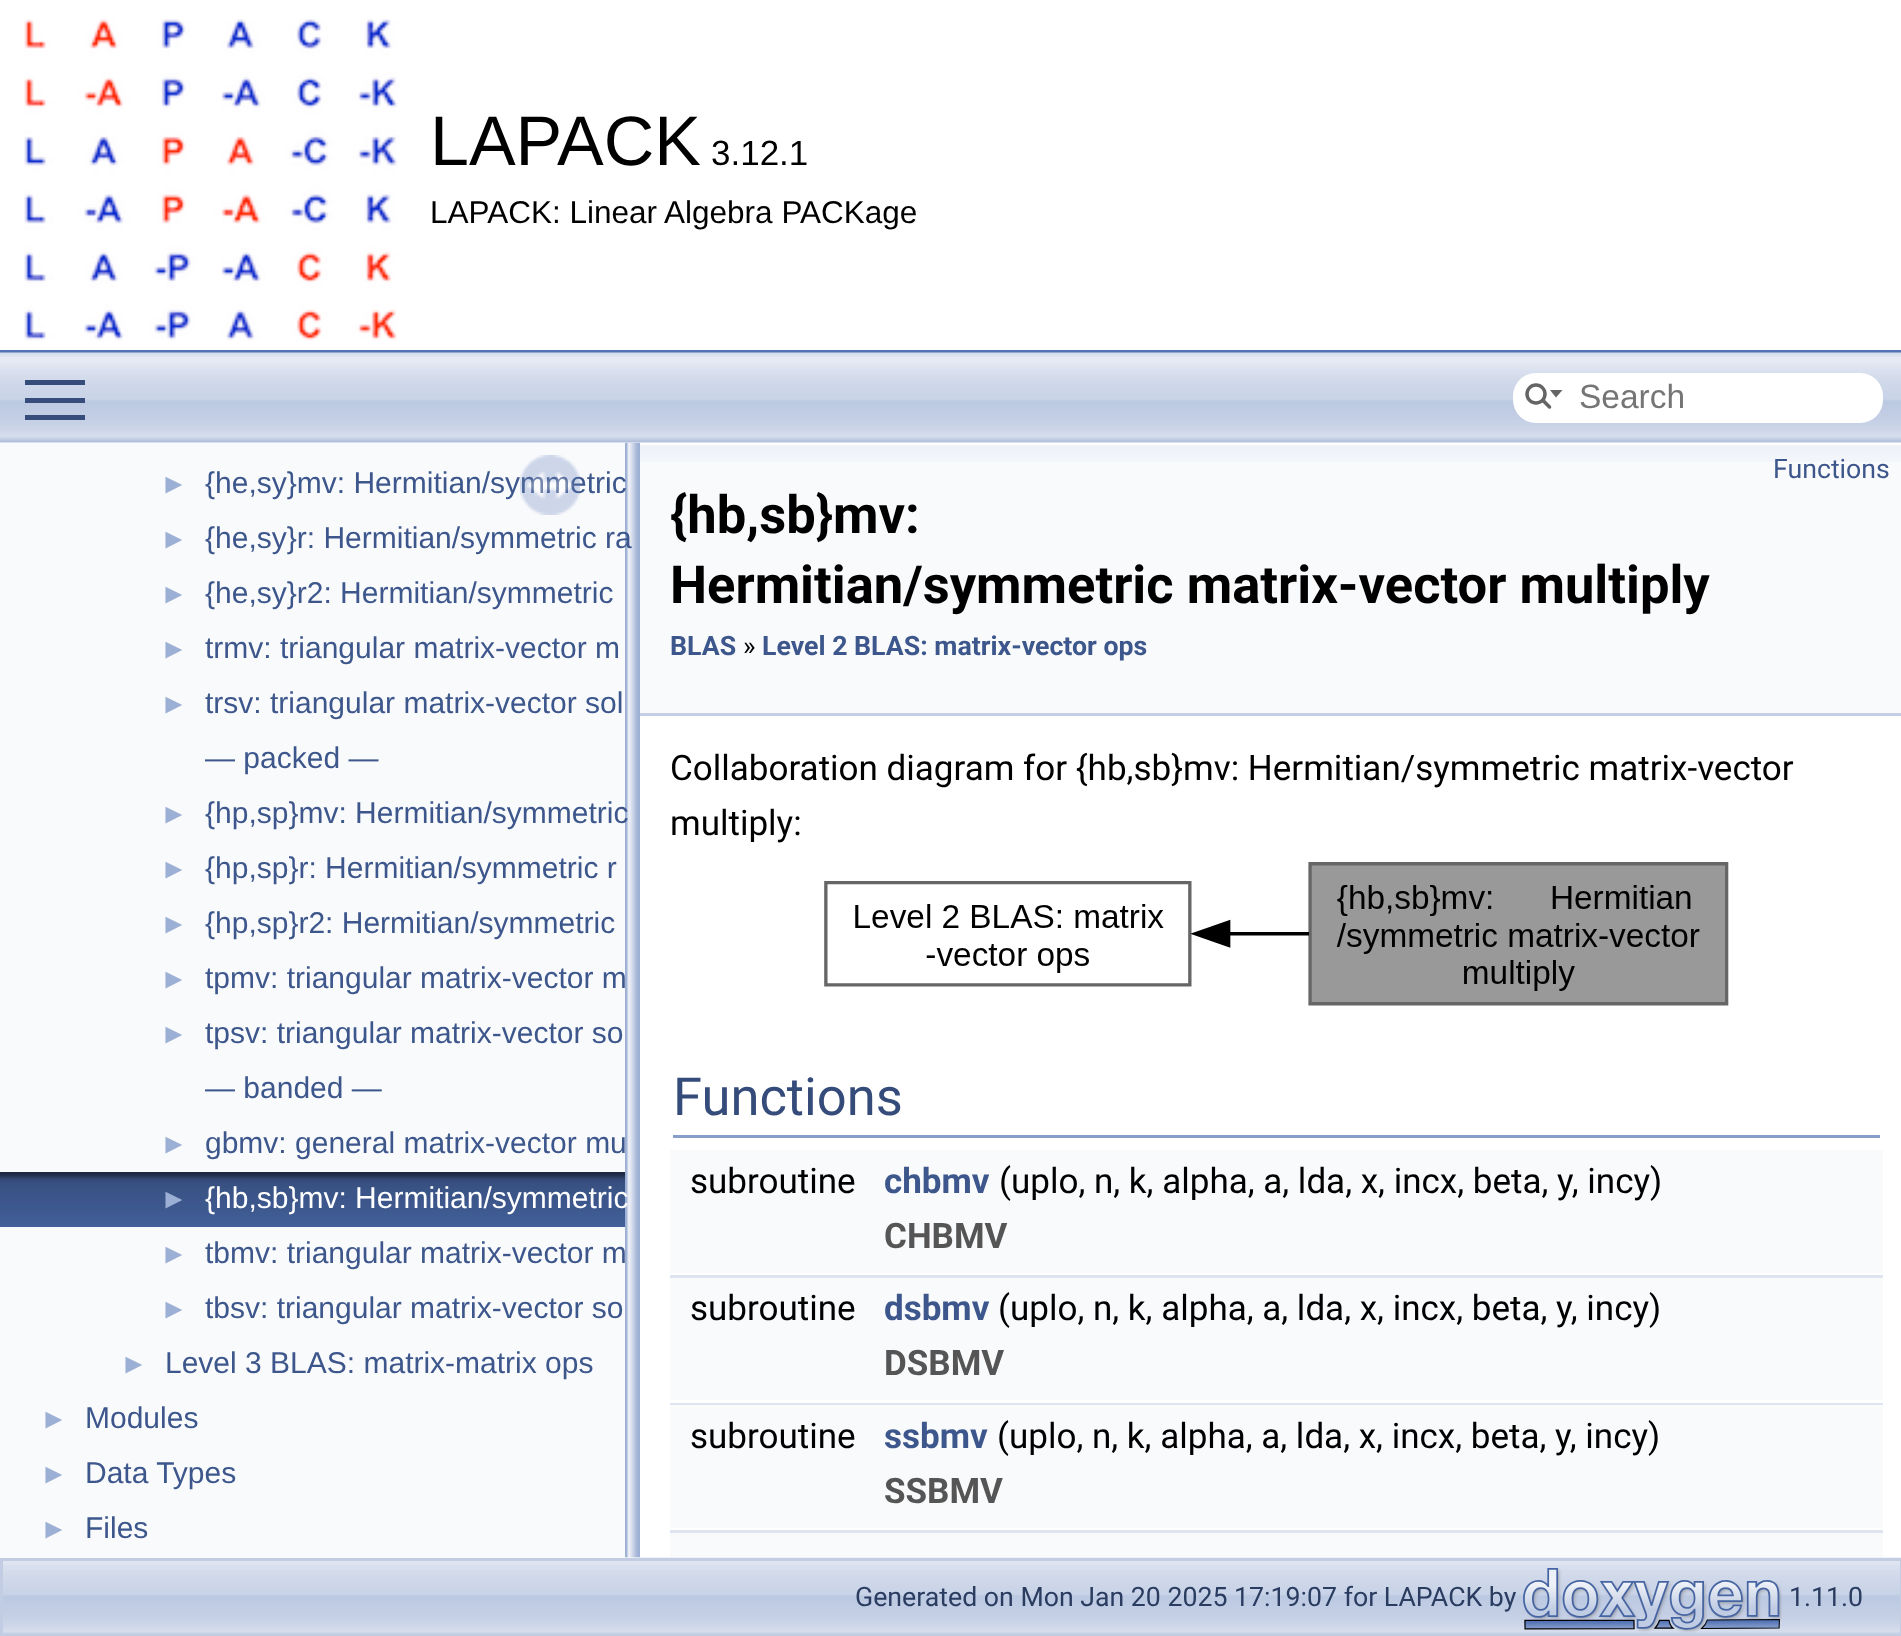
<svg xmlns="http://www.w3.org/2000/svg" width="1901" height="1636">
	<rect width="100%" height="100%" fill="#FFFFFF" />
	<rect x="0" y="350" width="1901" height="3" fill="#5373B4" />
	<image x="24" y="19" width="374" height="322" href="assets/img1.png" />
	<text x="430" y="165" font-family="Liberation Sans" font-size="70" fill="#000000">LAPACK</text>
	<text x="711" y="165" font-family="Liberation Sans" font-size="35" fill="#000000">3.12.1</text>
	<text x="430" y="223" font-family="Liberation Sans" font-size="31.5" fill="#000000">LAPACK: Linear Algebra PACKage</text>
	<rect x="670" y="1533" width="1213" height="25" fill="#F9FAFC" />
	<image x="3" y="1557" width="1898" height="78" href="assets/img8.png" />
	<image x="625" y="442" width="15" height="1116" href="assets/img5.png" />
	<image x="0" y="352" width="1901" height="91" href="assets/img2.png" />
	<rect x="25" y="398" width="60" height="5" fill="#364D7C" />
	<rect x="25" y="380" width="60" height="5" fill="#364D7C" />
	<rect x="25" y="415" width="60" height="5" fill="#364D7C" />
	<rect x="1513" y="373" width="370" height="50" rx="23" fill="#FFFFFF" />
	<circle cx="1536" cy="394" r="9" fill="none" stroke="#656565" stroke-width="3.5" />
	<path d="M1550 390L1556 397.5L1562.5 390Z" fill="#656565" />
	<path d="M1543 400.5L1549.5 407" fill="none" stroke="#656565" stroke-width="3.5" stroke-linecap="round" />
	<text x="1579" y="408" font-family="Liberation Sans" font-size="33.5" fill="#757575">Search</text>
	<rect x="0" y="443" width="625" height="1115" fill="#F9FAFC" />
	<text x="205" y="493" font-family="Liberation Sans" font-size="30" fill="#3D578C">{he,sy}mv: Hermitian/symmetric</text>
	<image x="520" y="455" width="60" height="60" href="assets/img3.png" />
	<g font-family="Liberation Sans" font-size="28" fill="#9CAFD4">
		<text x="160" y="493">►</text>
		<text x="160" y="548">►</text>
	</g>
	<text x="205" y="548" font-family="Liberation Sans" font-size="30" fill="#3D578C">{he,sy}r: Hermitian/symmetric ra</text>
	<text x="160" y="603" font-family="Liberation Sans" font-size="28" fill="#9CAFD4">►</text>
	<text x="205" y="603" font-family="Liberation Sans" font-size="30" fill="#3D578C">{he,sy}r2: Hermitian/symmetric</text>
	<text x="160" y="658" font-family="Liberation Sans" font-size="28" fill="#9CAFD4">►</text>
	<text x="205" y="658" font-family="Liberation Sans" font-size="30" fill="#3D578C">trmv: triangular matrix-vector m</text>
	<text x="160" y="713" font-family="Liberation Sans" font-size="28" fill="#9CAFD4">►</text>
	<g font-family="Liberation Sans" font-size="30" fill="#3D578C">
		<text x="205" y="713">trsv: triangular matrix-vector sol</text>
		<text x="205" y="768">— packed —</text>
	</g>
	<text x="160" y="823" font-family="Liberation Sans" font-size="28" fill="#9CAFD4">►</text>
	<text x="205" y="823" font-family="Liberation Sans" font-size="30" fill="#3D578C">{hp,sp}mv: Hermitian/symmetric</text>
	<text x="160" y="878" font-family="Liberation Sans" font-size="28" fill="#9CAFD4">►</text>
	<text x="205" y="878" font-family="Liberation Sans" font-size="30" fill="#3D578C">{hp,sp}r: Hermitian/symmetric r</text>
	<text x="160" y="933" font-family="Liberation Sans" font-size="28" fill="#9CAFD4">►</text>
	<text x="205" y="933" font-family="Liberation Sans" font-size="30" fill="#3D578C">{hp,sp}r2: Hermitian/symmetric</text>
	<text x="160" y="988" font-family="Liberation Sans" font-size="28" fill="#9CAFD4">►</text>
	<text x="205" y="988" font-family="Liberation Sans" font-size="30" fill="#3D578C">tpmv: triangular matrix-vector m</text>
	<text x="160" y="1043" font-family="Liberation Sans" font-size="28" fill="#9CAFD4">►</text>
	<g font-family="Liberation Sans" font-size="30" fill="#3D578C">
		<text x="205" y="1043">tpsv: triangular matrix-vector so</text>
		<text x="205" y="1098">— banded —</text>
	</g>
	<text x="160" y="1153" font-family="Liberation Sans" font-size="28" fill="#9CAFD4">►</text>
	<text x="205" y="1153" font-family="Liberation Sans" font-size="30" fill="#3D578C">gbmv: general matrix-vector mu</text>
	<image x="0" y="1172" width="625" height="55" href="assets/img4.png" />
	<text x="160" y="1208" font-family="Liberation Sans" font-size="28" fill="#9CAFD4">►</text>
	<text x="205" y="1208" font-family="Liberation Sans" font-size="30" fill="#FFFFFF">{hb,sb}mv: Hermitian/symmetric</text>
	<text x="160" y="1263" font-family="Liberation Sans" font-size="28" fill="#9CAFD4">►</text>
	<text x="205" y="1263" font-family="Liberation Sans" font-size="30" fill="#3D578C">tbmv: triangular matrix-vector m</text>
	<text x="160" y="1318" font-family="Liberation Sans" font-size="28" fill="#9CAFD4">►</text>
	<text x="205" y="1318" font-family="Liberation Sans" font-size="30" fill="#3D578C">tbsv: triangular matrix-vector so</text>
	<text x="120" y="1373" font-family="Liberation Sans" font-size="28" fill="#9CAFD4">►</text>
	<text x="165" y="1373" font-family="Liberation Sans" font-size="30" fill="#3D578C">Level 3 BLAS: matrix-matrix ops</text>
	<text x="40" y="1428" font-family="Liberation Sans" font-size="28" fill="#9CAFD4">►</text>
	<text x="85" y="1428" font-family="Liberation Sans" font-size="30" fill="#3D578C">Modules</text>
	<text x="40" y="1483" font-family="Liberation Sans" font-size="28" fill="#9CAFD4">►</text>
	<text x="85" y="1483" font-family="Liberation Sans" font-size="30" fill="#3D578C">Data Types</text>
	<text x="40" y="1538" font-family="Liberation Sans" font-size="28" fill="#9CAFD4">►</text>
	<text x="85" y="1538" font-family="Liberation Sans" font-size="30" fill="#3D578C">Files</text>
	<rect x="640" y="462" width="1261" height="251" fill="#F9FAFC" />
	<image x="640" y="443" width="1261" height="19" href="assets/img6.png" />
	<rect x="640" y="713" width="1261" height="3" fill="#C4CFE5" />
	<text x="1773" y="478" font-family="Roboto" font-size="26.7" fill="#3D578C">Functions</text>
	<g font-family="Roboto" font-size="52.5" font-weight="700" fill="#000000">
		<text x="670" y="533">{hb,sb}mv:</text>
		<text x="670" y="603">Hermitian/symmetric matrix-vector multiply</text>
	</g>
	<text x="670" y="655" font-family="Roboto" font-size="26.7" font-weight="700" fill="#3D578C">BLAS</text>
	<text x="743" y="655" font-family="Roboto" font-size="26.7" fill="#000000">»</text>
	<text x="762" y="655" font-family="Roboto" font-size="26.7" font-weight="700" fill="#3D578C">Level 2 BLAS: matrix-vector ops</text>
	<g font-family="Roboto" font-size="35" fill="#000000">
		<text x="670" y="780">Collaboration diagram for {hb,sb}mv: Hermitian/symmetric matrix-vector</text>
		<text x="670" y="835">multiply:</text>
	</g>
	<image x="824" y="862" width="905" height="144" href="assets/img7.png" />
	<rect x="673" y="1135" width="1207" height="3" fill="#879ECB" />
	<text x="673" y="1115" font-family="Roboto" font-size="52.5" fill="#354C7B">Functions</text>
	<rect x="670" y="1150" width="1213" height="58" fill="#F9FAFC" />
	<text x="690" y="1193" font-family="Roboto" font-size="35" fill="#000000">subroutine</text>
	<text x="884" y="1193" font-family="Roboto" font-size="35" font-weight="700" fill="#3D578C">chbmv</text>
	<text x="999" y="1193" font-family="Roboto" font-size="35" fill="#000000">(uplo, n, k, alpha, a, lda, x, incx, beta, y, incy)</text>
	<rect x="670" y="1208" width="1213" height="65" fill="#F9FAFC" />
	<text x="884" y="1248" font-family="Roboto" font-size="35" font-weight="700" fill="#555555">CHBMV</text>
	<rect x="670" y="1275" width="1213" height="3" fill="#DEE4F0" />
	<rect x="670" y="1278" width="1213" height="57" fill="#F9FAFC" />
	<text x="690" y="1320" font-family="Roboto" font-size="35" fill="#000000">subroutine</text>
	<text x="884" y="1320" font-family="Roboto" font-size="35" font-weight="700" fill="#3D578C">dsbmv</text>
	<text x="998" y="1320" font-family="Roboto" font-size="35" fill="#000000">(uplo, n, k, alpha, a, lda, x, incx, beta, y, incy)</text>
	<rect x="670" y="1335" width="1213" height="65" fill="#F9FAFC" />
	<text x="884" y="1375" font-family="Roboto" font-size="35" font-weight="700" fill="#555555">DSBMV</text>
	<rect x="670" y="1403" width="1213" height="2" fill="#DEE4F0" />
	<rect x="670" y="1405" width="1213" height="58" fill="#F9FAFC" />
	<text x="690" y="1448" font-family="Roboto" font-size="35" fill="#000000">subroutine</text>
	<text x="884" y="1448" font-family="Roboto" font-size="35" font-weight="700" fill="#3D578C">ssbmv</text>
	<text x="997" y="1448" font-family="Roboto" font-size="35" fill="#000000">(uplo, n, k, alpha, a, lda, x, incx, beta, y, incy)</text>
	<rect x="670" y="1463" width="1213" height="65" fill="#F9FAFC" />
	<text x="884" y="1503" font-family="Roboto" font-size="35" font-weight="700" fill="#555555">SSBMV</text>
	<rect x="670" y="1530" width="1213" height="3" fill="#DEE4F0" />
	<rect x="1.5" y="1559.5" width="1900" height="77" fill="none" stroke="#C2CDE4" stroke-width="3" />
	<text x="855" y="1606" font-family="Roboto" font-size="26.7" fill="#2A3D61">Generated on Mon Jan 20 2025 17:19:07 for LAPACK by</text>
	<image x="1523" y="1568" width="259" height="65" href="assets/img9.png" />
	<text x="1789" y="1606" font-family="Roboto" font-size="26.7" fill="#2A3D61">1.11.0</text>
</svg>
